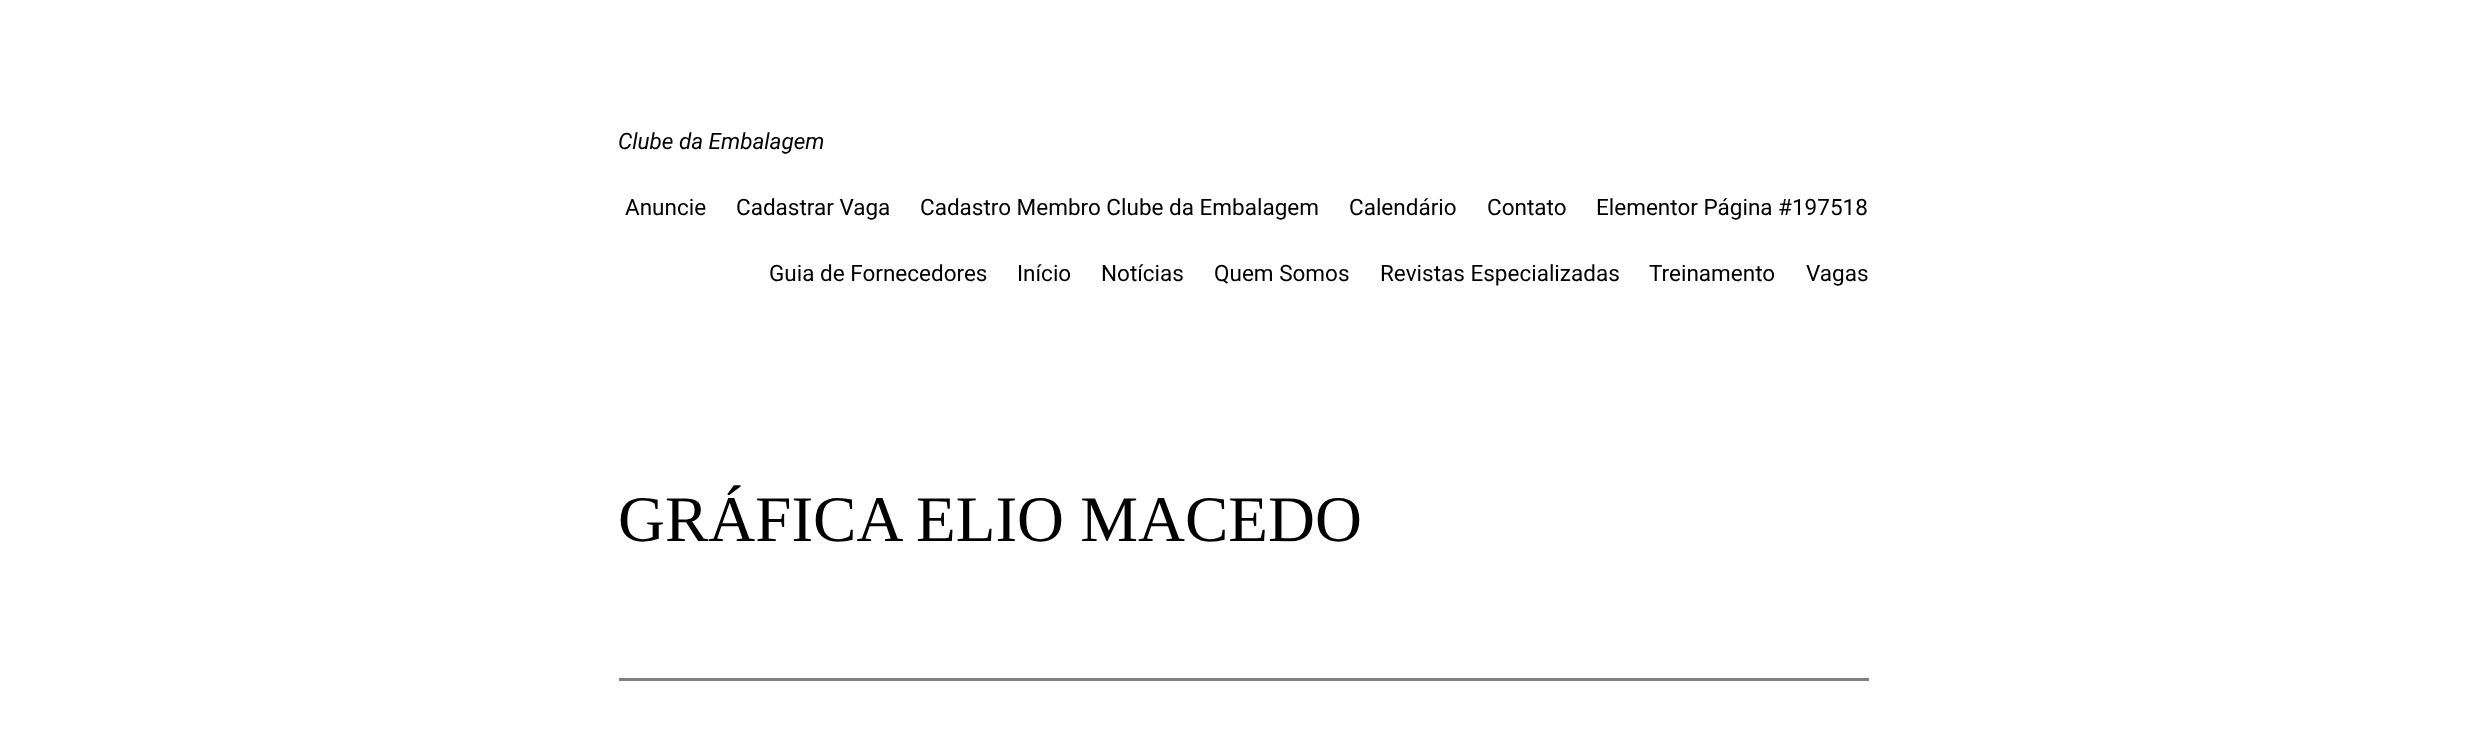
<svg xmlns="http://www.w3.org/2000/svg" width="2486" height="745">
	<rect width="100%" height="100%" fill="#FFFFFF" />
	<text x="618" y="149" font-family="Roboto" font-size="22.5" font-style="italic" fill="#000000">Clube da Embalagem</text>
	<g font-family="Roboto" font-size="22.5" fill="#000000">
		<text x="625" y="215">Anuncie</text>
		<text x="736" y="215">Cadastrar Vaga</text>
		<text x="920" y="215">Cadastro Membro Clube da Embalagem</text>
		<text x="1349" y="215">Calendário</text>
		<text x="1487" y="215">Contato</text>
		<text x="1596" y="215">Elementor Página #197518</text>
		<text x="769" y="281">Guia de Fornecedores</text>
		<text x="1017" y="281">Início</text>
		<text x="1101" y="281">Notícias</text>
		<text x="1214" y="281">Quem Somos</text>
		<text x="1380" y="281">Revistas Especializadas</text>
		<text x="1649" y="281">Treinamento</text>
		<text x="1806" y="281">Vagas</text>
	</g>
	<text x="618" y="541" font-family="Liberation Serif" font-size="65" fill="#000000">GRÁFICA ELIO MACEDO</text>
	<rect x="619" y="678" width="1250" height="3" fill="#808080" />
</svg>
